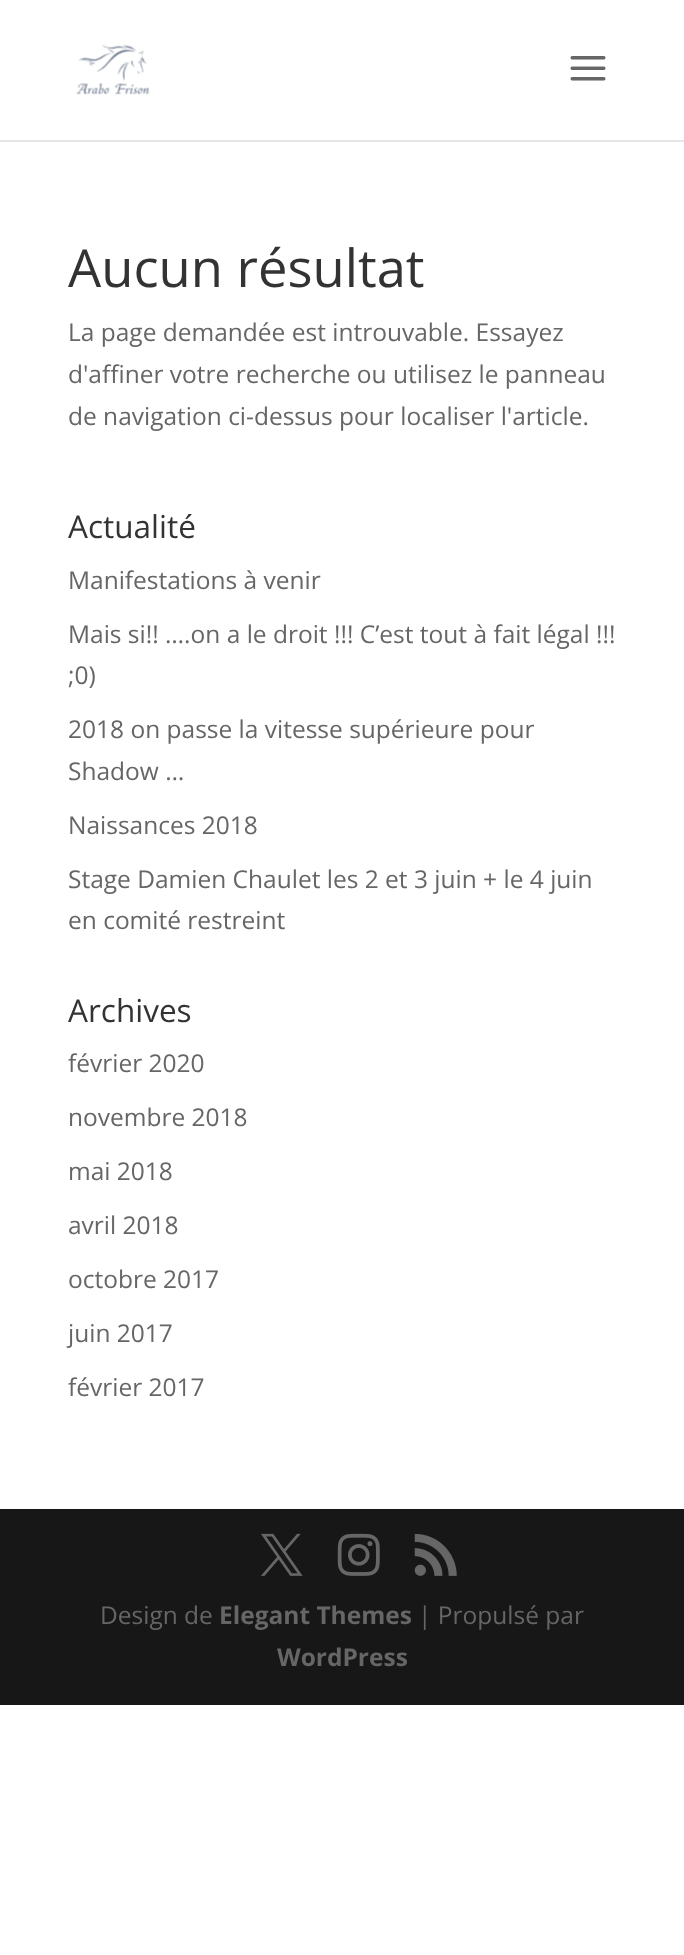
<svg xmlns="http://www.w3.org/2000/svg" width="684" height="1955">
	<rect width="100%" height="100%" fill="#FFFFFF" />
	<rect x="0" y="140" width="684" height="2" fill="#E6E6E6" />
	<image x="76" y="44" width="74" height="51" href="assets/img1.png" />
	<image x="570" y="56" width="36" height="25" href="assets/img2.png" />
	<text x="68" y="287" font-family="Open Sans" font-size="52.5" fill="#333333">Aucun résultat</text>
	<g font-family="Open Sans" font-size="24.5" fill="#666666">
		<text x="68" y="341">La page demandée est introuvable. Essayez</text>
		<text x="68" y="383">d'affiner votre recherche ou utilisez le panneau</text>
		<text x="68" y="425">de navigation ci-dessus pour localiser l'article.</text>
	</g>
	<text x="68" y="538" font-family="Open Sans" font-size="31.5" fill="#333333">Actualité</text>
	<g font-family="Open Sans" font-size="24.5" fill="#666666">
		<text x="68" y="589">Manifestations à venir</text>
		<text x="68" y="643">Mais si!! ….on a le droit !!! C’est tout à fait légal !!!</text>
		<text x="68" y="684">;0)</text>
		<text x="68" y="738">2018 on passe la vitesse supérieure pour</text>
		<text x="68" y="780">Shadow …</text>
		<text x="68" y="834">Naissances 2018</text>
		<text x="68" y="888">Stage Damien Chaulet les 2 et 3 juin + le 4 juin</text>
		<text x="68" y="929">en comité restreint</text>
	</g>
	<text x="68" y="1022" font-family="Open Sans" font-size="31.5" fill="#333333">Archives</text>
	<g font-family="Open Sans" font-size="24.5" fill="#666666">
		<text x="68" y="1072">février 2020</text>
		<text x="68" y="1126">novembre 2018</text>
		<text x="68" y="1180">mai 2018</text>
		<text x="68" y="1234">avril 2018</text>
		<text x="68" y="1288">octobre 2017</text>
		<text x="68" y="1342">juin 2017</text>
		<text x="68" y="1396">février 2017</text>
	</g>
	<rect x="0" y="1509" width="684" height="196" fill="#171717" />
	<image x="261" y="1533" width="42" height="43" href="assets/img3.png" />
	<image x="337" y="1533" width="43" height="43" href="assets/img4.png" />
	<image x="414" y="1533" width="43" height="43" href="assets/img5.png" />
	<text x="100" y="1624" font-family="Open Sans" font-size="24.5" fill="#666666">Design de</text>
	<text x="219" y="1624" font-family="Open Sans" font-size="24.5" font-weight="700" fill="#666666">Elegant Themes</text>
	<text x="418" y="1624" font-family="Open Sans" font-size="24.5" fill="#666666">| Propulsé par</text>
	<text x="277" y="1666" font-family="Open Sans" font-size="24.5" font-weight="700" fill="#666666">WordPress</text>
</svg>
